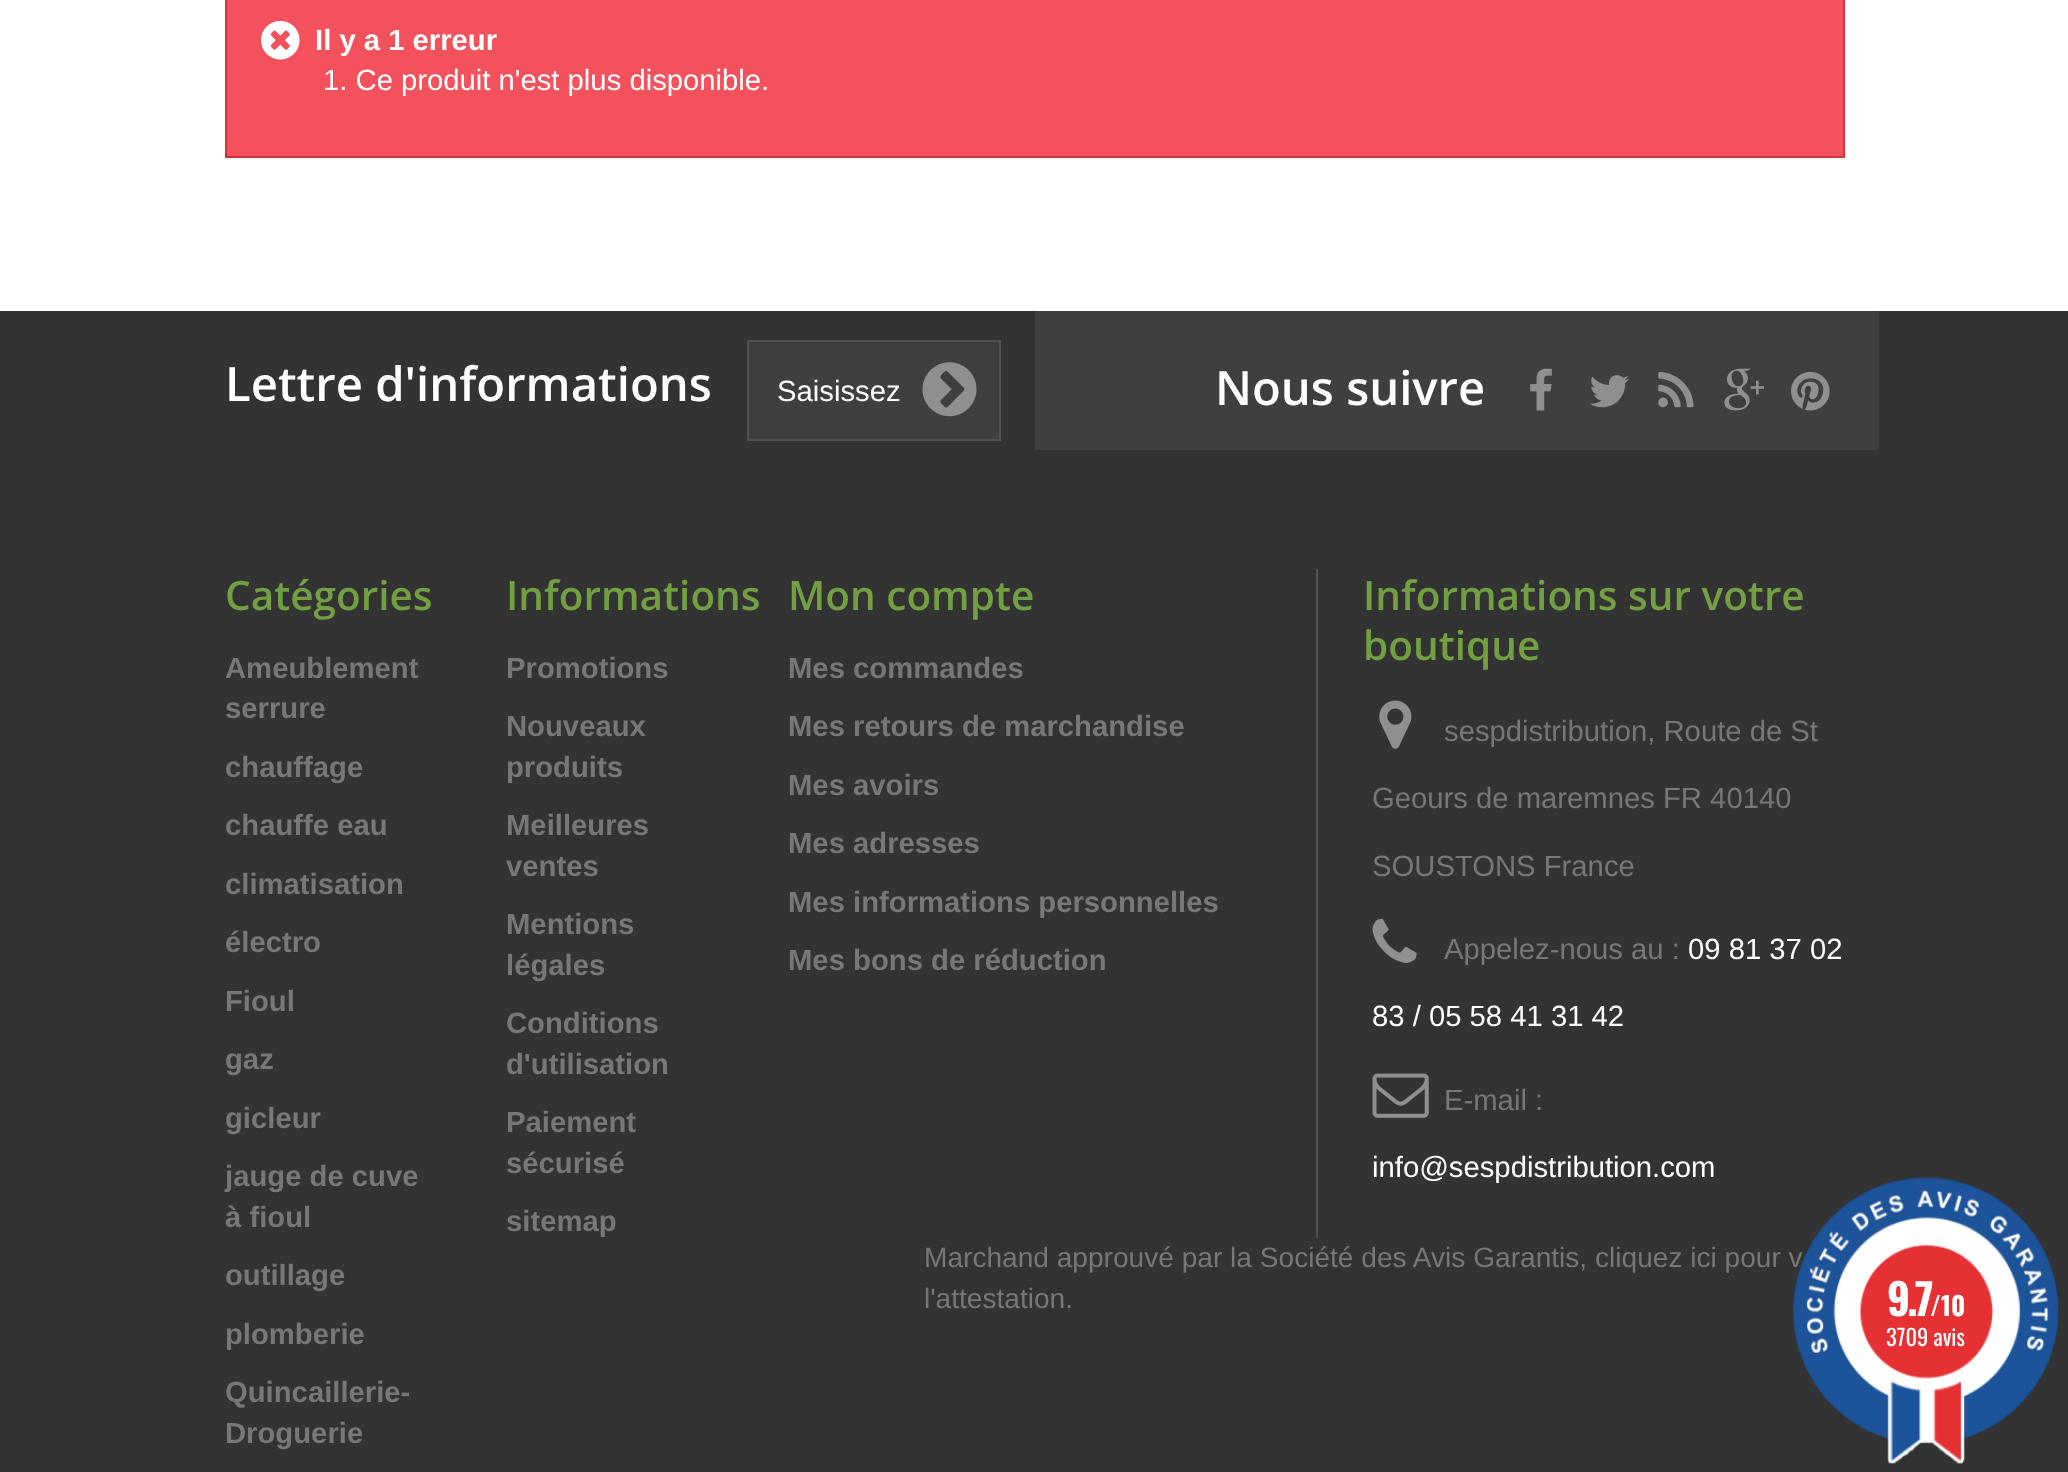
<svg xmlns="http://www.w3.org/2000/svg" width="2068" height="1472">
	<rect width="100%" height="100%" fill="#333333" />
	<rect x="0" y="0" width="2068" height="311" fill="#FFFFFF" />
	<rect x="226" y="-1" width="1618" height="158" fill="#F3515C" stroke="#D4323D" stroke-width="2" />
	<image x="261" y="20" width="39" height="40" href="assets/img1.png" />
	<text x="315" y="50" font-family="Liberation Sans" font-size="29.25" font-weight="700" fill="#FFFFFF">Il y a 1 erreur</text>
	<text x="323" y="90" font-family="Liberation Sans" font-size="29.25" fill="#FFFFFF">1. Ce produit n'est plus disponible.</text>
	<text x="225" y="401" font-family="Open Sans" font-size="47.25" font-weight="600" fill="#FFFFFF">Lettre d'informations</text>
	<rect x="748" y="341" width="252" height="99" fill="#3F3F3F" stroke="#515151" stroke-width="2" />
	<text x="777" y="401" font-family="Liberation Sans" font-size="29.25" fill="#FFFFFF">Saisissez</text>
	<image x="922" y="362" width="55" height="55" href="assets/img2.png" />
	<rect x="1035" y="311" width="844" height="139" fill="#3F3F3F" />
	<text x="1215" y="405" font-family="Open Sans" font-size="47.25" font-weight="600" fill="#FFFFFF">Nous suivre</text>
	<image x="1530" y="368" width="22" height="43" href="assets/img3.png" />
	<image x="1590" y="375" width="39" height="33" href="assets/img4.png" />
	<image x="1658" y="372" width="36" height="36" href="assets/img5.png" />
	<image x="1724" y="368" width="40" height="43" href="assets/img6.png" />
	<image x="1791" y="371" width="39" height="40" href="assets/img7.png" />
	<text x="225" y="610" font-family="Open Sans" font-size="40.5" font-weight="600" fill="#719F41">Catégories</text>
	<g font-family="Liberation Sans" font-size="29.25" font-weight="700" fill="#777777">
		<text x="225" y="678">Ameublement</text>
		<text x="225" y="718">serrure</text>
		<text x="225" y="777">chauffage</text>
		<text x="225" y="835">chauffe eau</text>
		<text x="225" y="894">climatisation</text>
		<text x="225" y="952">électro</text>
		<text x="225" y="1011">Fioul</text>
		<text x="225" y="1069">gaz</text>
		<text x="225" y="1128">gicleur</text>
		<text x="225" y="1186">jauge de cuve</text>
		<text x="225" y="1227">à fioul</text>
		<text x="225" y="1285">outillage</text>
		<text x="225" y="1344">plomberie</text>
		<text x="225" y="1402">Quincaillerie-</text>
		<text x="225" y="1443">Droguerie</text>
	</g>
	<text x="506" y="610" font-family="Open Sans" font-size="40.5" font-weight="600" fill="#719F41">Informations</text>
	<g font-family="Liberation Sans" font-size="29.25" font-weight="700" fill="#777777">
		<text x="506" y="678">Promotions</text>
		<text x="506" y="736">Nouveaux</text>
		<text x="506" y="777">produits</text>
		<text x="506" y="835">Meilleures</text>
		<text x="506" y="876">ventes</text>
		<text x="506" y="934">Mentions</text>
		<text x="506" y="975">légales</text>
		<text x="506" y="1033">Conditions</text>
		<text x="506" y="1074">d'utilisation</text>
		<text x="506" y="1132">Paiement</text>
		<text x="506" y="1173">sécurisé</text>
		<text x="506" y="1231">sitemap</text>
	</g>
	<text x="788" y="610" font-family="Open Sans" font-size="40.5" font-weight="600" fill="#719F41">Mon compte</text>
	<g font-family="Liberation Sans" font-size="29.25" font-weight="700" fill="#777777">
		<text x="788" y="678">Mes commandes</text>
		<text x="788" y="736">Mes retours de marchandise</text>
		<text x="788" y="795">Mes avoirs</text>
		<text x="788" y="853">Mes adresses</text>
		<text x="788" y="912">Mes informations personnelles</text>
		<text x="788" y="970">Mes bons de réduction</text>
	</g>
	<rect x="1316" y="569" width="2" height="669" fill="#515151" />
	<g font-family="Open Sans" font-size="40.5" font-weight="600" fill="#719F41">
		<text x="1363" y="610">Informations sur votre</text>
		<text x="1363" y="660">boutique</text>
	</g>
	<image x="1379" y="700" width="33" height="49" href="assets/img8.png" />
	<g font-family="Liberation Sans" font-size="29.25" fill="#777777">
		<text x="1444" y="741">sespdistribution, Route de St</text>
		<text x="1372" y="808">Geours de maremnes FR 40140</text>
		<text x="1372" y="876">SOUSTONS France</text>
	</g>
	<image x="1372" y="918" width="45" height="45" href="assets/img9.png" />
	<text x="1444" y="959" font-family="Liberation Sans" font-size="29.25" fill="#777777">Appelez-nous au :</text>
	<g font-family="Liberation Sans" font-size="29.25" fill="#FFFFFF">
		<text x="1688" y="959">09 81 37 02</text>
		<text x="1372" y="1026">83 / 05 58 41 31 42</text>
	</g>
	<image x="1372" y="1073" width="57" height="45" href="assets/img10.png" />
	<text x="1444" y="1110" font-family="Liberation Sans" font-size="29.25" fill="#777777">E-mail :</text>
	<text x="1372" y="1177" font-family="Liberation Sans" font-size="29.25" fill="#FFFFFF">info@sespdistribution.com</text>
	<g font-family="Liberation Sans" font-size="28.1" fill="#777777">
		<text x="924" y="1267">Marchand approuvé par la Société des Avis Garantis, cliquez ici pour v</text>
		<text x="924" y="1308">l'attestation.</text>
	</g>
	<image x="1793" y="1177" width="266" height="287" href="assets/img11.png" />
	<text x="1887" y="1316" font-family="Oswald" font-size="43" font-weight="700" letter-spacing="-3" fill="#FFFFFF">9.7</text>
	<text x="1930" y="1316" font-family="Oswald" font-size="26" font-weight="700" fill="#FFFFFF">/10</text>
	<text x="1886" y="1346" font-family="Oswald" font-size="22.5" fill="#FFFFFF">3709 avis</text>
</svg>
